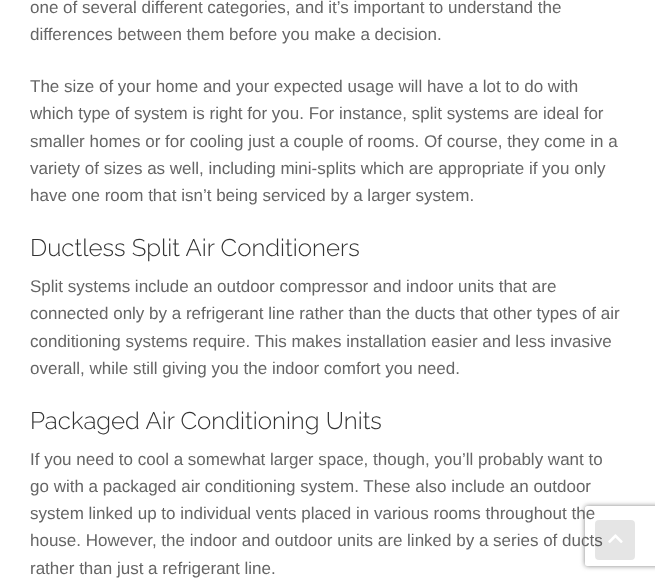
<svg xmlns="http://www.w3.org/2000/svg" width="655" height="580">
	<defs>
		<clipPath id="clip1"><path d="M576 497H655V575H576ZM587 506H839C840 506 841 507 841 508V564C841 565 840 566 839 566H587C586 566 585 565 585 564V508C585 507 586 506 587 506Z" clip-rule="evenodd" /></clipPath>
	</defs>
	<rect width="100%" height="100%" fill="#FFFFFF" />
	<g font-family="Liberation Sans" font-size="17" fill="#666666">
		<text x="30" y="13">one of several different categories, and it’s important to understand the</text>
		<text x="30" y="40">differences between them before you make a decision.</text>
		<text x="30" y="92">The size of your home and your expected usage will have a lot to do with</text>
		<text x="30" y="119">which type of system is right for you. For instance, split systems are ideal for</text>
		<text x="30" y="147">smaller homes or for cooling just a couple of rooms. Of course, they come in a</text>
		<text x="30" y="174">variety of sizes as well, including mini-splits which are appropriate if you only</text>
		<text x="30" y="201">have one room that isn’t being serviced by a larger system.</text>
	</g>
	<text x="30" y="256" font-family="Raleway" font-size="24.1" font-weight="300" fill="#333333">Ductless Split Air Conditioners</text>
	<g font-family="Liberation Sans" font-size="17" fill="#666666">
		<text x="30" y="292">Split systems include an outdoor compressor and indoor units that are</text>
		<text x="30" y="319">connected only by a refrigerant line rather than the ducts that other types of air</text>
		<text x="30" y="347">conditioning systems require. This makes installation easier and less invasive</text>
		<text x="30" y="374">overall, while still giving you the indoor comfort you need.</text>
	</g>
	<text x="30" y="429" font-family="Raleway" font-size="24.1" font-weight="300" fill="#333333">Packaged Air Conditioning Units</text>
	<g font-family="Liberation Sans" font-size="17" fill="#666666">
		<text x="30" y="465">If you need to cool a somewhat larger space, though, you’ll probably want to</text>
		<text x="30" y="492">go with a packaged air conditioning system. These also include an outdoor</text>
		<text x="30" y="519">system linked up to individual vents placed in various rooms throughout the</text>
		<text x="30" y="546">house. However, the indoor and outdoor units are linked by a series of ducts</text>
		<text x="30" y="574">rather than just a refrigerant line.</text>
	</g>
	<g clip-path="url(#clip1)">
		<rect x="585" y="506" width="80" height="60" rx="2" fill="#808080" filter="blur(2.5px)" />
	</g>
	<rect x="595" y="520" width="40" height="40" rx="4" fill="#000000" fill-opacity="0.1" />
	<image x="608" y="534" width="15" height="9" href="assets/img1.png" />
</svg>
